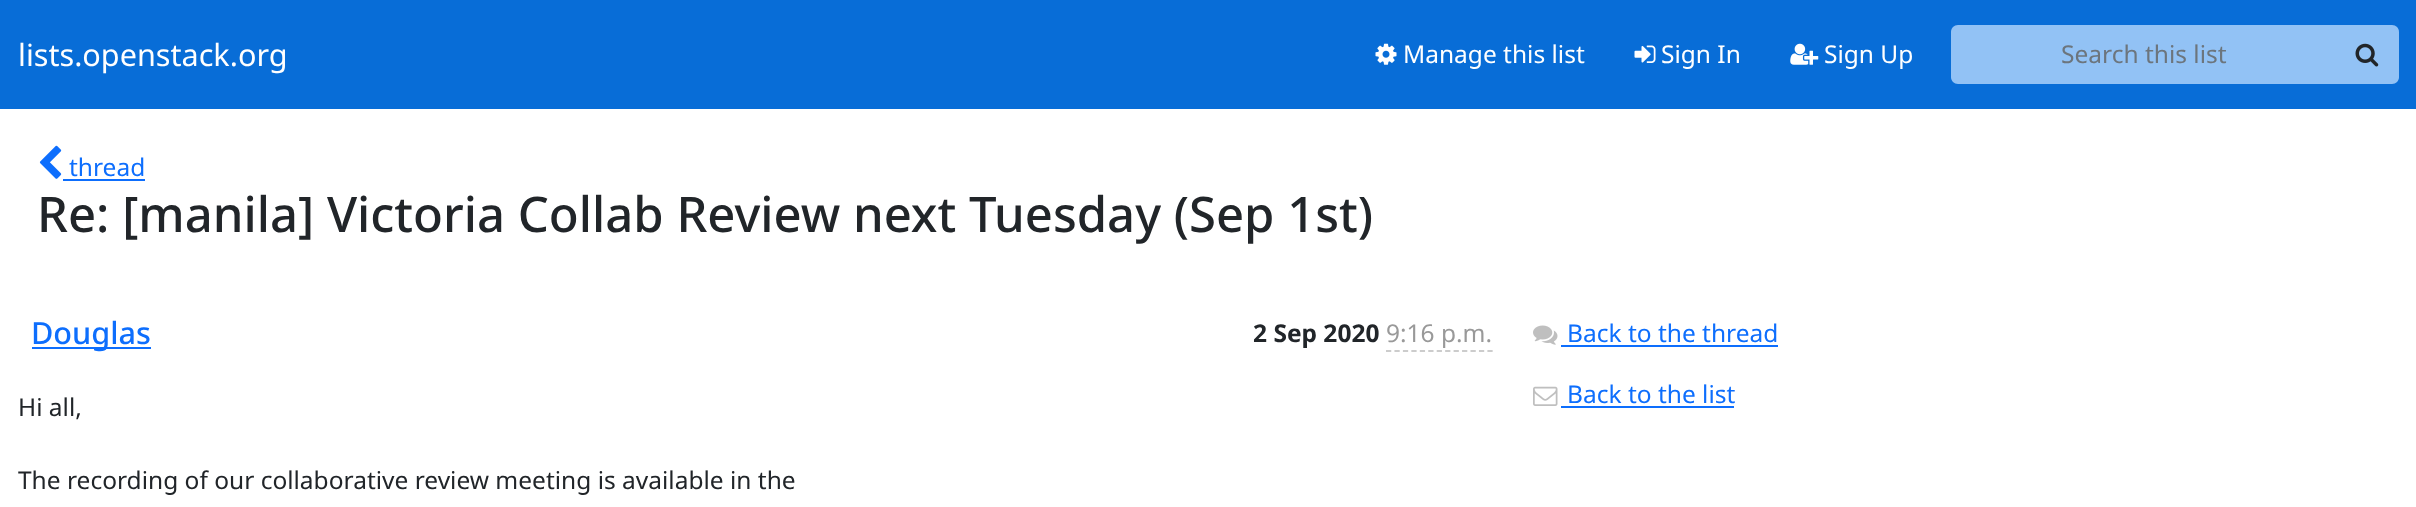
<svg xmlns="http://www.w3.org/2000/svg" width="2416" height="507">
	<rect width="100%" height="100%" fill="#FFFFFF" />
	<rect x="0" y="0" width="2416" height="109" fill="#086DD7" />
	<text x="18" y="66" font-family="Noto Sans" font-size="30.6" fill="#FFFFFF">lists.openstack.org</text>
	<image x="1375" y="43" width="22" height="22" href="assets/img1.png" />
	<text x="1403" y="63" font-family="Noto Sans" font-size="24.5" fill="#FFFFFF">Manage this list</text>
	<image x="1634" y="45" width="22" height="18" href="assets/img2.png" />
	<text x="1661" y="63" font-family="Noto Sans" font-size="24.5" fill="#FFFFFF">Sign In</text>
	<image x="1790" y="43" width="29" height="22" href="assets/img3.png" />
	<text x="1824" y="63" font-family="Noto Sans" font-size="24.5" fill="#FFFFFF">Sign Up</text>
	<path d="M1958 25H2338V84H1958C1954 84 1951 81 1951 77V32C1951 28 1954 25 1958 25Z" fill="#92C2F5" />
	<text x="2061" y="63" font-family="Noto Sans" font-size="24.5" fill="#6C757D">Search this list</text>
	<path d="M2336 25H2392C2396 25 2399 28 2399 32V77C2399 81 2396 84 2392 84H2336Z" fill="#92C2F5" />
	<image x="2355" y="43" width="24" height="24" href="assets/img4.png" />
	<image x="39" y="145" width="23" height="34" href="assets/img5.png" />
	<text x="69" y="176" font-family="Noto Sans" font-size="24.5" fill="#0D6EFD">thread</text>
	<rect x="63" y="179" width="82" height="2" fill="#0D6EFD" />
	<text x="37" y="232" font-family="Noto Sans" font-size="49" font-weight="500" fill="#212529">Re: [manila] Victoria Collab Review next Tuesday (Sep 1st)</text>
	<rect x="32" y="347" width="119" height="2" fill="#0D6EFD" />
	<text x="31" y="344" font-family="Noto Sans" font-size="30.6" font-weight="500" fill="#0D6EFD">Douglas</text>
	<text x="1253" y="342" font-family="Noto Sans" font-size="24.5" font-weight="700" fill="#212529">2 Sep 2020</text>
	<text x="1386" y="342" font-family="Noto Sans" font-size="24.5" fill="#999999">9:16 p.m.</text>
	<path d="M1386 351H1493" fill="none" stroke="#CCCCCC" stroke-width="1.8" stroke-dasharray="5.25 3.2" />
	<g font-family="Noto Sans" font-size="24.5" fill="#212529">
		<text x="18" y="416">Hi all,</text>
		<text x="18" y="489">The recording of our collaborative review meeting is available in the</text>
	</g>
	<image x="1533" y="325" width="25" height="20" href="assets/img6.png" />
	<text x="1567" y="342" font-family="Noto Sans" font-size="24.5" fill="#0D6EFD">Back to the thread</text>
	<rect x="1561" y="345" width="217" height="2" fill="#0D6EFD" />
	<image x="1533" y="386" width="25" height="20" href="assets/img7.png" />
	<text x="1567" y="403" font-family="Noto Sans" font-size="24.5" fill="#0D6EFD">Back to the list</text>
	<rect x="1561" y="406" width="173" height="2" fill="#0D6EFD" />
</svg>
